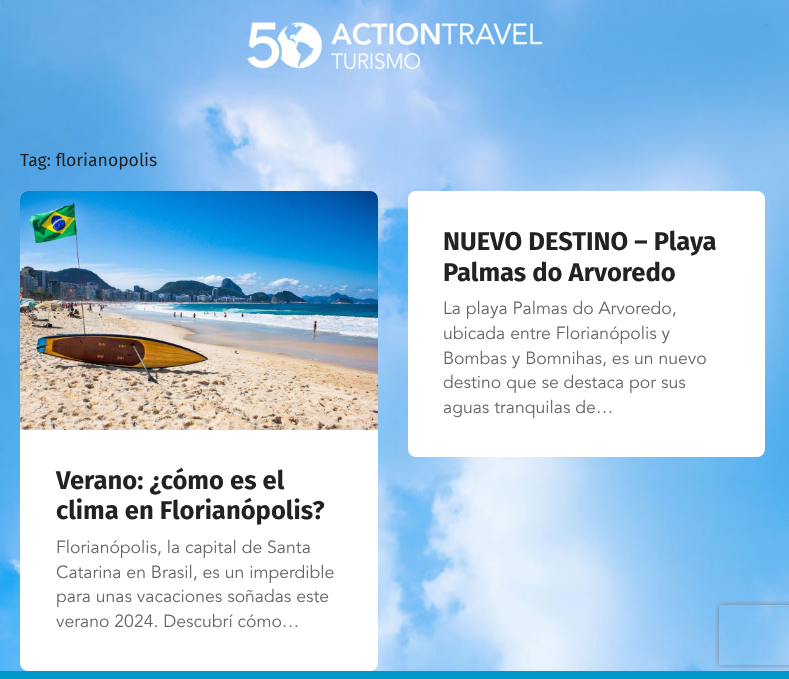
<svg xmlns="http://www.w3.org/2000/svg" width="789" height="679">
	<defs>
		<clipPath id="clip1"><path d="M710 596H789V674H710ZM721 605H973C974 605 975 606 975 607V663C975 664 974 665 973 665H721C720 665 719 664 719 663V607C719 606 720 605 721 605Z" clip-rule="evenodd" /></clipPath>
	</defs>
	<rect width="100%" height="100%" fill="#FFFFFF" />
	<image x="0" y="0" width="789" height="671" href="assets/img1.png" />
	<image x="247" y="22" width="296" height="48" href="assets/img2.png" />
	<text x="20" y="166" font-family="Fira Sans" font-size="17.6" fill="#222222">Tag: florianopolis</text>
	<rect x="408" y="191" width="357" height="266" rx="8" fill="#FFFFFF" />
	<g font-family="Fira Sans" font-size="25.6" font-weight="700" fill="#222222">
		<text x="443" y="250">NUEVO DESTINO – Playa</text>
		<text x="443" y="281">Palmas do Arvoredo</text>
	</g>
	<g font-family="Avenir" font-size="17.6" fill="#666666">
		<text x="443" y="314">La playa Palmas do Arvoredo,</text>
		<text x="443" y="339">ubicada entre Florianópolis y</text>
		<text x="443" y="364">Bombas y Bomnihas, es un nuevo</text>
		<text x="443" y="388">destino que se destaca por sus</text>
		<text x="443" y="413">aguas tranquilas de…</text>
	</g>
	<rect x="20" y="191" width="358" height="480" rx="8" fill="#FFFFFF" />
	<image x="20" y="191" width="358" height="239" href="assets/img3.png" />
	<g font-family="Fira Sans" font-size="25.6" font-weight="700" fill="#222222">
		<text x="56" y="489">Verano: ¿cómo es el</text>
		<text x="56" y="519">clima en Florianópolis?</text>
	</g>
	<g font-family="Avenir" font-size="17.6" fill="#666666">
		<text x="56" y="553">Florianópolis, la capital de Santa</text>
		<text x="56" y="578">Catarina en Brasil, es un imperdible</text>
		<text x="56" y="602">para unas vacaciones soñadas este</text>
		<text x="56" y="627">verano 2024. Descubrí cómo…</text>
	</g>
	<g clip-path="url(#clip1)">
		<rect x="719" y="605" width="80" height="60" rx="2" fill="#808080" filter="blur(2.5px)" />
	</g>
	<rect x="0" y="671" width="789" height="8" fill="#0099CC" />
</svg>
